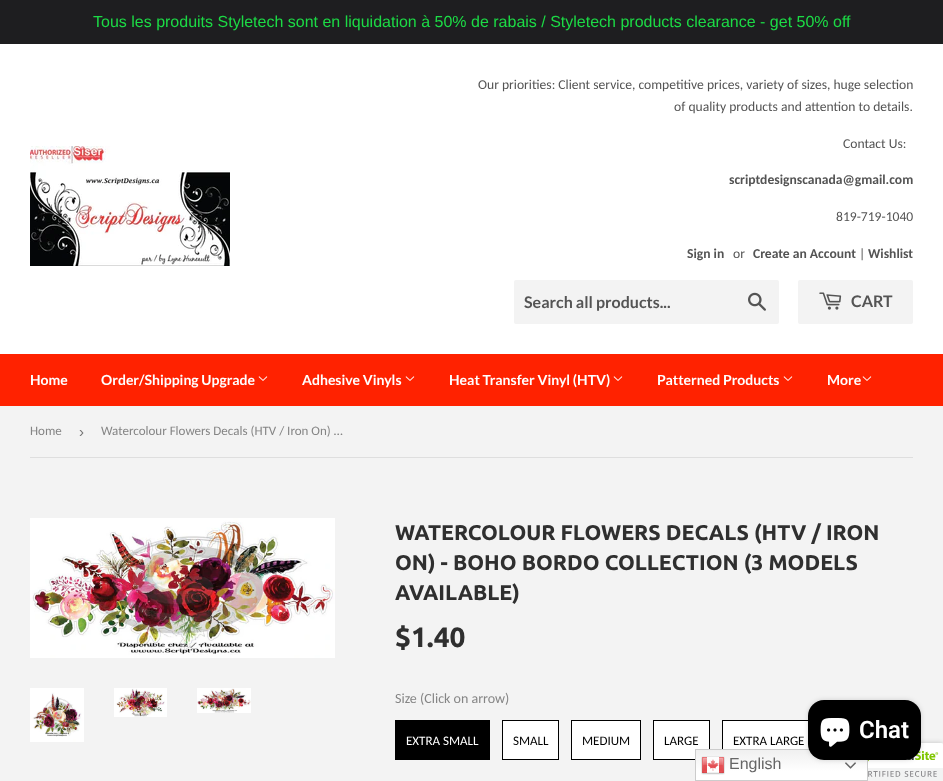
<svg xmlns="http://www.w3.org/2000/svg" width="943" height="781">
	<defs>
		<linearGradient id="g1" gradientUnits="userSpaceOnUse" x1="782" y1="749" x2="782" y2="781"><stop offset="0" stop-color="#EFEFEF" /><stop offset="0.7" stop-color="#FFFFFF" /></linearGradient>
	</defs>
	<rect width="100%" height="100%" fill="#F3F3F3" />
	<rect x="0" y="0" width="943" height="44" fill="#1E1E20" />
	<text x="93" y="27" font-family="Liberation Sans" font-size="16" fill="#1CDA45">Tous les produits Styletech sont en liquidation à 50% de rabais / Styletech products clearance - get 50% off</text>
	<rect x="0" y="44" width="943" height="310" fill="#FFFFFF" />
	<image x="30" y="146" width="200" height="120" href="assets/img1.png" />
	<g font-family="Carlito" font-size="13.6" fill="#545454">
		<text x="478" y="89">Our priorities: Client service, competitive prices, variety of sizes, huge selection</text>
		<text x="674" y="111">of quality products and attention to details.</text>
		<text x="843" y="148">Contact Us:</text>
	</g>
	<text x="729" y="184" font-family="Carlito" font-size="13.6" font-weight="700" fill="#545454">scriptdesignscanada@gmail.com</text>
	<text x="836" y="221" font-family="Carlito" font-size="13.6" fill="#545454">819-719-1040</text>
	<text x="687" y="258" font-family="Carlito" font-size="13.6" font-weight="700" fill="#545454">Sign in</text>
	<text x="733" y="258" font-family="Carlito" font-size="13.6" fill="#545454">or</text>
	<text x="753" y="258" font-family="Carlito" font-size="13.6" font-weight="700" fill="#545454">Create an Account</text>
	<text x="859" y="258" font-family="Carlito" font-size="13.6" fill="#545454">|</text>
	<text x="868" y="258" font-family="Carlito" font-size="13.6" font-weight="700" fill="#545454">Wishlist</text>
	<rect x="514" y="280" width="265" height="44" rx="2" fill="#F3F3F3" />
	<text x="524" y="308" font-family="Lato" font-size="16" font-weight="700" fill="#545454">Search all products...</text>
	<image x="748" y="292" width="18" height="19" href="assets/img2.png" />
	<rect x="798" y="280" width="115" height="44" rx="2" fill="#F3F3F3" />
	<image x="819" y="292" width="23" height="18" href="assets/img3.png" />
	<text x="851" y="307" font-family="Lato" font-size="16" font-weight="700" fill="#545454">CART</text>
	<rect x="0" y="354" width="943" height="52" fill="#FF2200" />
	<g font-family="Lato" font-size="14" font-weight="700" fill="#FFFFFF">
		<text x="30" y="385">Home</text>
		<text x="101" y="385">Order/Shipping Upgrade</text>
	</g>
	<image x="258" y="376" width="10" height="5" href="assets/img4.png" />
	<text x="302" y="385" font-family="Lato" font-size="14" font-weight="700" fill="#FFFFFF">Adhesive Vinyls</text>
	<image x="405" y="376" width="10" height="5" href="assets/img4.png" />
	<text x="449" y="385" font-family="Lato" font-size="14" font-weight="700" fill="#FFFFFF">Heat Transfer Vinyl (HTV)</text>
	<image x="613" y="376" width="10" height="5" href="assets/img4.png" />
	<text x="657" y="385" font-family="Lato" font-size="14" font-weight="700" fill="#FFFFFF">Patterned Products</text>
	<image x="783" y="376" width="10" height="5" href="assets/img4.png" />
	<text x="827" y="385" font-family="Lato" font-size="14" font-weight="700" fill="#FFFFFF">More</text>
	<image x="862" y="376" width="10" height="5" href="assets/img4.png" />
	<rect x="30" y="457" width="883" height="1" fill="#DEDEDE" />
	<text x="30" y="435" font-family="Carlito" font-size="13" fill="#858585">Home</text>
	<text x="79" y="437" font-family="Liberation Sans" font-size="15" fill="#767676">›</text>
	<text x="101" y="435" font-family="Carlito" font-size="13" fill="#858585">Watercolour Flowers Decals (HTV / Iron On) …</text>
	<image x="30" y="518" width="305" height="140" href="assets/img5.png" />
	<image x="30" y="688" width="54" height="54" href="assets/img6.png" />
	<image x="114" y="688" width="53" height="29" href="assets/img7.png" />
	<image x="197" y="688" width="54" height="25" href="assets/img8.png" />
	<g font-family="Ubuntu" font-size="21.3" font-weight="700" fill="#2F2F2F">
		<text x="395" y="540">WATERCOLOUR FLOWERS DECALS (HTV / IRON</text>
		<text x="395" y="570">ON) - BOHO BORDO COLLECTION (3 MODELS</text>
		<text x="395" y="600">AVAILABLE)</text>
	</g>
	<text x="395" y="647" font-family="Ubuntu" font-size="28" font-weight="700" fill="#2F2F2F">$1.40</text>
	<text x="395" y="703" font-family="Carlito" font-size="14" fill="#858585">Size (Click on arrow)</text>
	<rect x="395.5" y="720.5" width="94" height="39" fill="none" stroke="#000000" />
	<rect x="396" y="721" width="93" height="38" fill="#000000" />
	<text x="406" y="745" font-family="Carlito" font-size="13" fill="#FFFFFF">EXTRA SMALL</text>
	<rect x="502.5" y="720.5" width="56" height="39" fill="none" stroke="#000000" />
	<rect x="503" y="721" width="55" height="38" fill="#FFFFFF" />
	<text x="513" y="745" font-family="Carlito" font-size="13" fill="#000000">SMALL</text>
	<rect x="571.5" y="720.5" width="69" height="39" fill="none" stroke="#000000" />
	<rect x="572" y="721" width="68" height="38" fill="#FFFFFF" />
	<text x="582" y="745" font-family="Carlito" font-size="13" fill="#000000">MEDIUM</text>
	<rect x="653.5" y="720.5" width="56" height="39" fill="none" stroke="#000000" />
	<rect x="654" y="721" width="55" height="38" fill="#FFFFFF" />
	<text x="664" y="745" font-family="Carlito" font-size="13" fill="#000000">LARGE</text>
	<rect x="722.5" y="720.5" width="92" height="39" fill="none" stroke="#000000" />
	<rect x="723" y="721" width="86" height="28" fill="#FFFFFF" />
	<text x="733" y="745" font-family="Carlito" font-size="13" fill="#000000">EXTRA LARGE</text>
	<rect x="851" y="743" width="92" height="38" rx="2" fill="#000000" fill-opacity="0.2" filter="blur(2.5px)" />
	<rect x="696" y="750" width="171" height="30" fill="url(#g1)" />
	<rect x="695.5" y="749.5" width="172" height="31" fill="none" stroke="#CCCCCC" />
	<image x="845" y="762" width="11" height="7" href="assets/img11.png" />
	<rect x="941" y="743" width="2" height="2" fill="#FFFFFF" />
	<image x="868" y="743" width="75" height="38" href="assets/img12.png" />
	<rect x="808" y="700" width="113" height="60" rx="16" fill="#000000" fill-opacity="0.15" filter="blur(2.5px)" />
	<rect x="808" y="700" width="113" height="60" rx="16" fill="#000000" />
	<image x="820" y="718" width="30" height="29" href="assets/img9.png" />
	<text x="859" y="738" font-family="Roboto" font-size="24" font-weight="600" fill="#FFFFFF">Chat</text>
	<image x="701" y="756" width="24" height="19" href="assets/img10.png" />
	<text x="729" y="769" font-family="Liberation Sans" font-size="16" fill="#666666">English</text>
</svg>
